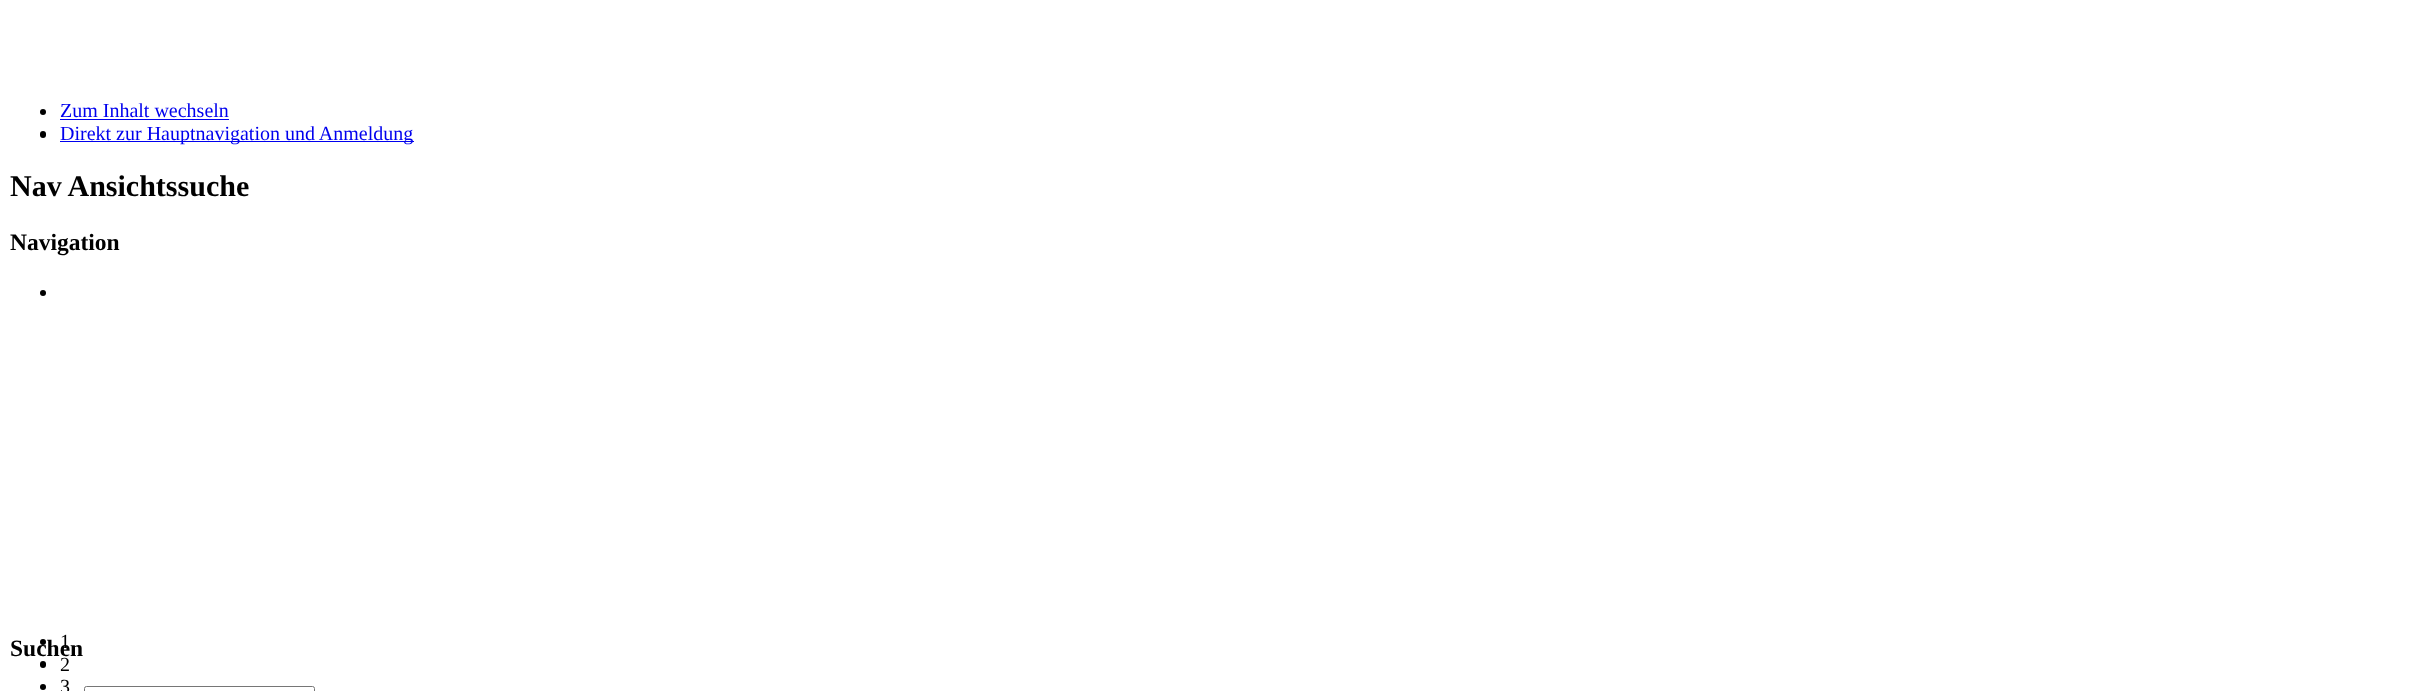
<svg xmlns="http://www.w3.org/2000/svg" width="2409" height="691">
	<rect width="100%" height="100%" fill="#FFFFFF" />
	<circle cx="43" cy="112" r="3" fill="#000000" />
	<text x="60" y="117" font-family="Liberation Serif" font-size="20" fill="#0000EE">Zum Inhalt wechseln</text>
	<rect x="60" y="119" width="169" height="1" fill="#0000EE" />
	<rect x="40" y="131" width="6" height="7" rx="3" fill="#000000" />
	<rect x="60" y="141" width="354" height="1" fill="#0000EE" />
	<text x="60" y="140" font-family="Liberation Serif" font-size="20" fill="#0000EE">Direkt zur Hauptnavigation und Anmeldung</text>
	<text x="10" y="196" font-family="Liberation Serif" font-size="30" font-weight="700" fill="#000000">Nav Ansichtssuche</text>
	<text x="10" y="250" font-family="Liberation Serif" font-size="23.5" font-weight="700" fill="#000000">Navigation</text>
	<circle cx="43" cy="293" r="3" fill="#000000" />
	<circle cx="43" cy="642" r="3" fill="#000000" />
	<text x="60" y="648" font-family="Liberation Serif" font-size="20" fill="#000000">1</text>
	<rect x="40" y="661" width="6" height="7" rx="3" fill="#000000" />
	<text x="60" y="671" font-family="Liberation Serif" font-size="20" fill="#000000">2</text>
	<circle cx="43" cy="687" r="3" fill="#000000" />
	<text x="60" y="693" font-family="Liberation Serif" font-size="20" fill="#000000">3</text>
	<text x="10" y="656" font-family="Liberation Serif" font-size="23.5" font-weight="700" fill="#000000">Suchen</text>
	<rect x="84.5" y="686.5" width="230" height="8" rx="2" fill="none" stroke="#767676" />
</svg>
